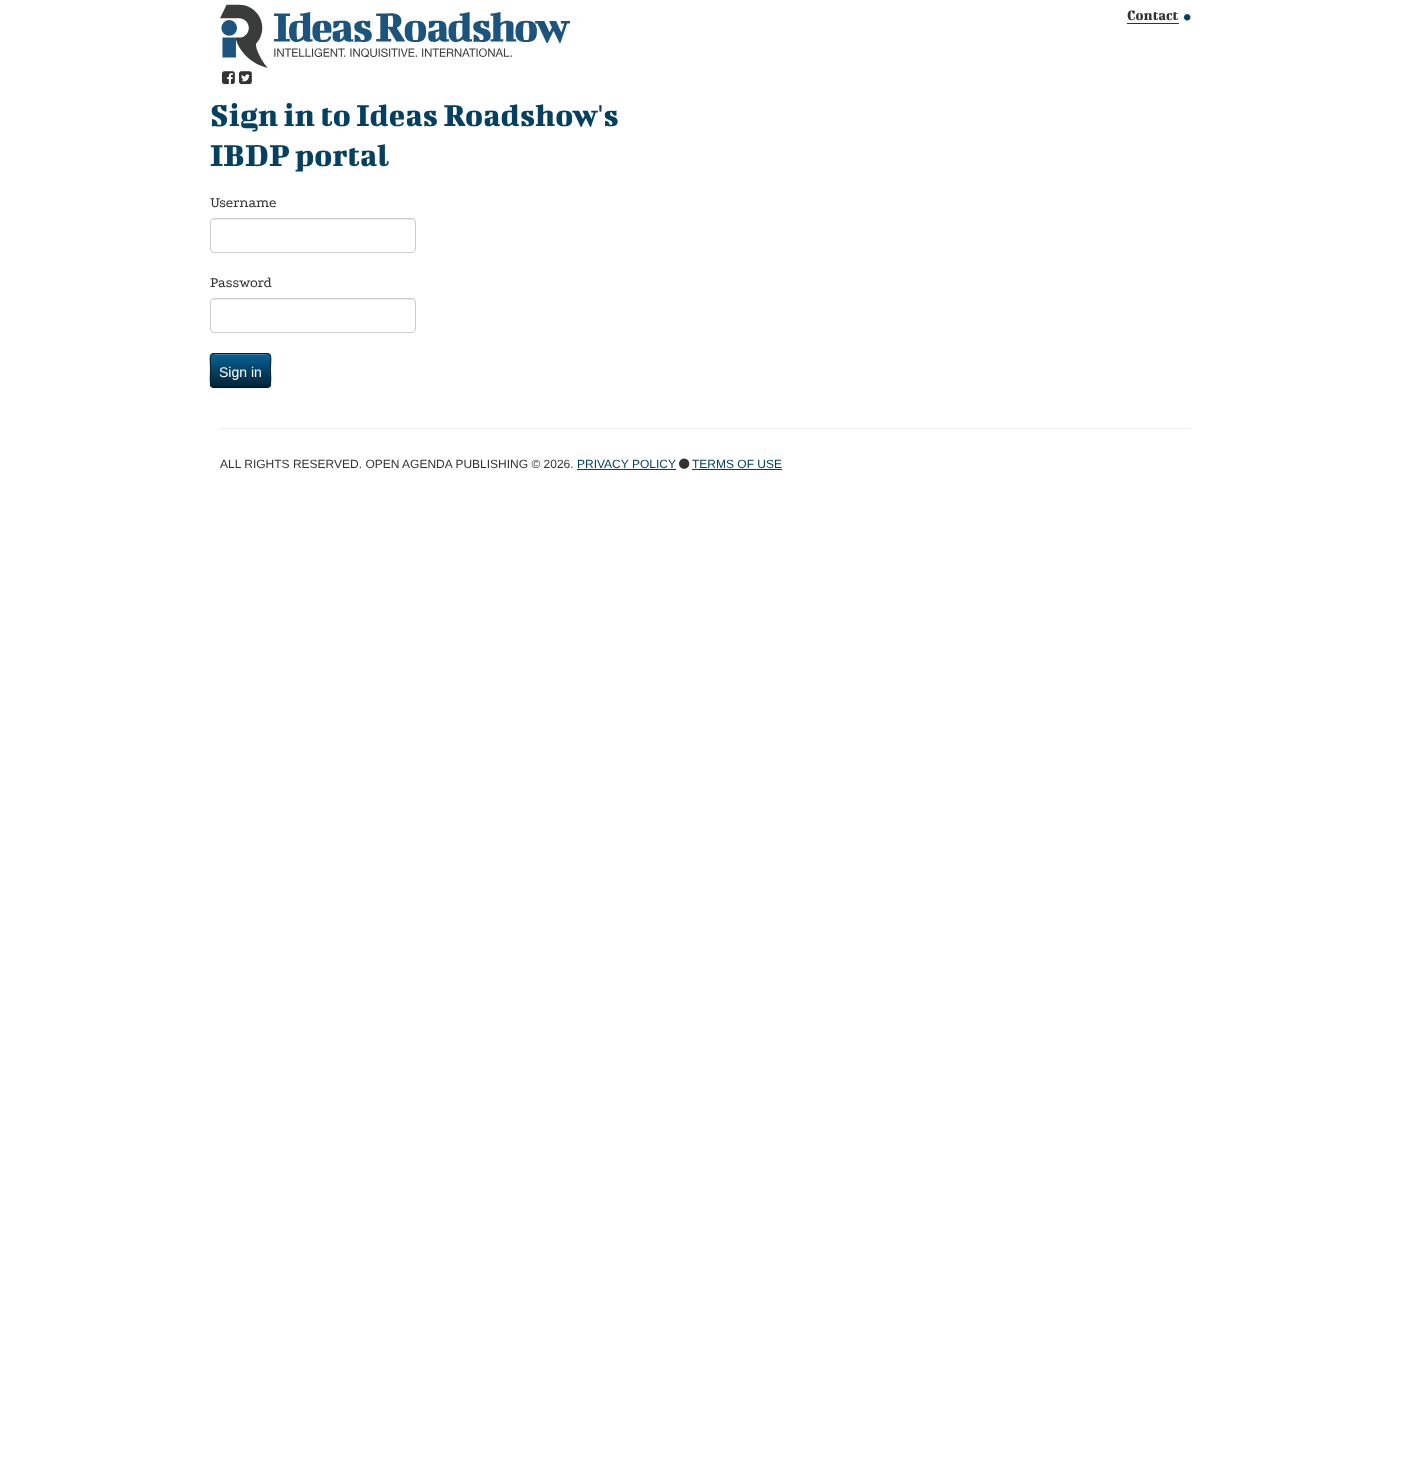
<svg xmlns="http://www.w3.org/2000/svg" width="1410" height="1480">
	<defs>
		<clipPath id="clip1"><rect x="210" y="353" width="61" height="35" rx="4" /></clipPath>
		<linearGradient id="g1" gradientUnits="userSpaceOnUse" x1="241" y1="354" x2="241" y2="387"><stop offset="0" stop-color="#076296" /><stop offset="1" stop-color="#022235" /></linearGradient>
	</defs>
	<rect width="100%" height="100%" fill="#FFFFFF" />
	<image x="220" y="4" width="350" height="64" href="assets/img1.png" />
	<image x="222" y="71" width="13" height="14" href="assets/img2.png" />
	<image x="239" y="71" width="13" height="14" href="assets/img3.png" />
	<text x="1127" y="20" font-family="Bigshot One" font-size="15" fill="#333333">Contact</text>
	<rect x="1127" y="23" width="52" height="1" fill="#054060" />
	<image x="1184" y="14" width="7" height="7" href="assets/img4.png" />
	<g font-family="Bigshot One" font-size="33.75" fill="#054060">
		<text x="210" y="126">Sign in to Ideas Roadshow's</text>
		<text x="210" y="166">IBDP portal</text>
	</g>
	<text x="210" y="207" font-family="Podkova" font-size="15" fill="#333333">Username</text>
	<path d="M214 220H412C414 220 415 221 415 223C415 221 414 219 412 219H214C212 219 211 221 211 223C211 221 212 220 214 220Z" fill="#ECECEC" />
	<rect x="210.5" y="218.5" width="205" height="34" rx="3.5" fill="none" stroke="#CCCCCC" />
	<text x="210" y="287" font-family="Podkova" font-size="15" fill="#333333">Password</text>
	<path d="M214 300H412C414 300 415 301 415 303C415 301 414 299 412 299H214C212 299 211 301 211 303C211 301 212 300 214 300Z" fill="#ECECEC" />
	<rect x="210.5" y="298.5" width="205" height="34" rx="3.5" fill="none" stroke="#CCCCCC" />
	<rect x="210" y="354" width="61" height="35" rx="4" fill="#000000" fill-opacity="0.05" filter="blur(1px)" />
	<rect x="210" y="353" width="61" height="35" rx="4" fill="#032435" />
	<g clip-path="url(#clip1)">
		<rect x="210" y="354" width="61" height="33" fill="url(#g1)" />
	</g>
	<path d="M214 355H267C269 355 270 356 270 358C270 352 263 354 258 354H223C218 354 211 352 211 358C211 356 212 355 214 355Z" fill="#3981AA" />
	<path d="M269.5 386.5L267.5 387.5H213.5L211.5 386.5" fill="none" stroke="#02131D" />
	<path d="M211.5 386.5C209.5 384 210.5 373.5 210.5 370.5C210.5 353.5 207 353.5 223 353.5H258C274 353.5 270.5 353.5 270.5 370.5C270.5 373.5 271.5 384 269.5 386.5" fill="none" stroke="#022235" />
	<text x="219" y="377" font-family="Liberation Sans" font-size="14" fill="#FFFFFF">Sign in</text>
	<rect x="220" y="428" width="970" height="1" fill="#EEEEEE" />
	<text x="220" y="468" font-family="Liberation Sans" font-size="12" fill="#333333">ALL RIGHTS RESERVED. OPEN AGENDA PUBLISHING © 2026.</text>
	<text x="577" y="468" font-family="Liberation Sans" font-size="12" fill="#054060">PRIVACY POLICY</text>
	<rect x="577" y="469" width="99" height="1" fill="#054060" />
	<image x="679" y="458" width="11" height="11" href="assets/img5.png" />
	<text x="692" y="468" font-family="Liberation Sans" font-size="12" fill="#054060">TERMS OF USE</text>
	<rect x="692" y="469" width="90" height="1" fill="#054060" />
</svg>
